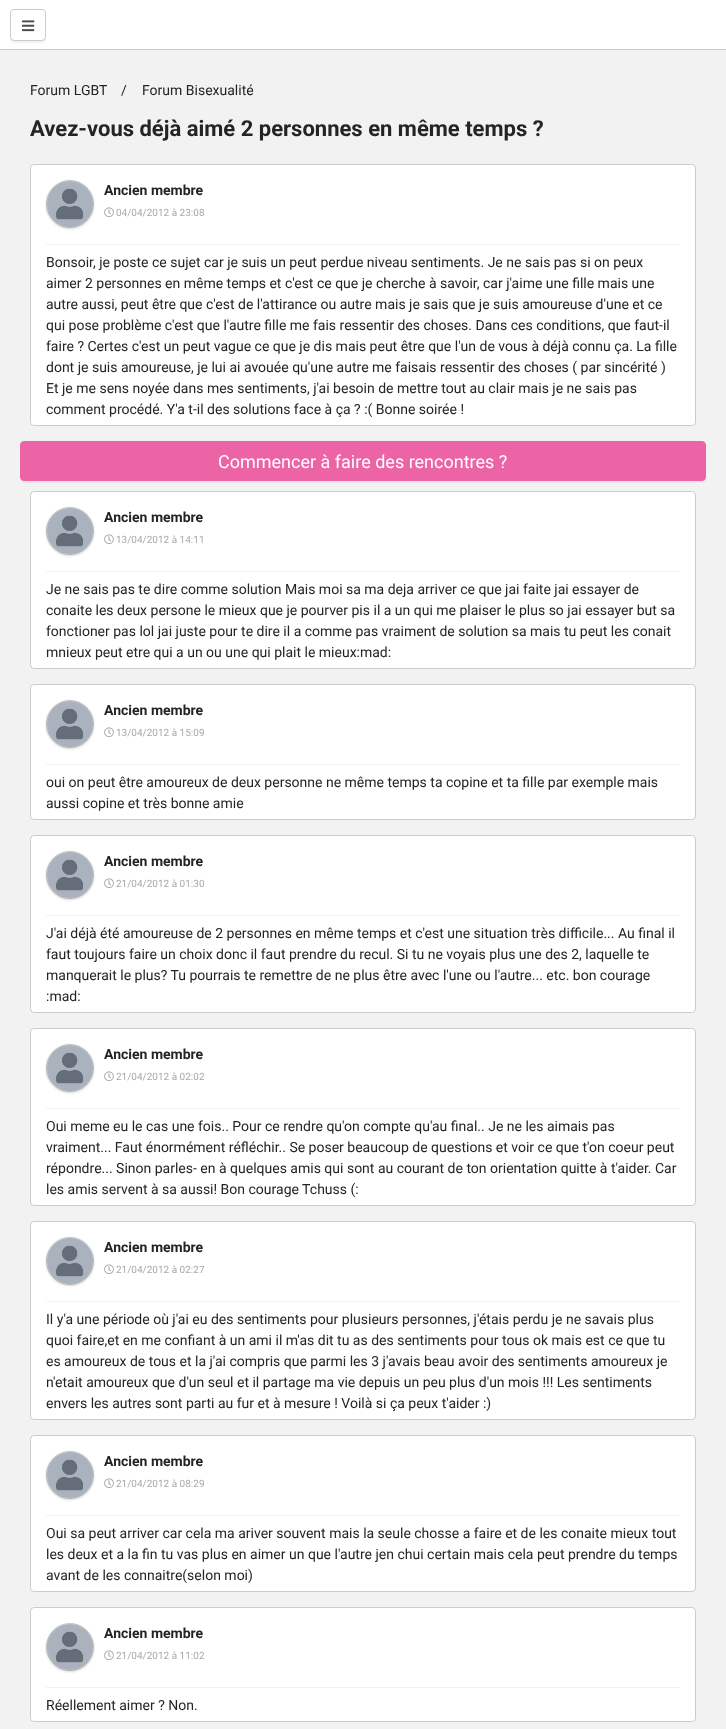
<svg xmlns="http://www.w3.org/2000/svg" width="726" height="1729">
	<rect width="100%" height="100%" fill="#F2F2F2" />
	<rect x="0" y="0" width="726" height="49" fill="#FFFFFF" />
	<rect x="0" y="49" width="726" height="1" fill="#CCCCCC" />
	<path d="M10 37C10 43.5 12.5 43 18.5 43H37.5C43.5 43 46 43.5 46 37C46 39 44 41 42 41H14C12 41 10 39 10 37Z" fill="#F2F2F2" />
	<rect x="10.5" y="9.5" width="35" height="31" rx="3.5" fill="#FFFFFF" stroke="#CCCCCC" />
	<image x="22" y="20" width="13" height="12" href="assets/img1.png" />
	<g font-family="Roboto" font-size="14" fill="#242424">
		<text x="30" y="95">Forum LGBT</text>
		<text x="121" y="95">/</text>
		<text x="142" y="95">Forum Bisexualité</text>
	</g>
	<text x="30" y="136" font-family="Roboto" font-size="22" font-weight="700" fill="#242424">Avez-vous déjà aimé 2 personnes en même temps ?</text>
	<rect x="30" y="164" width="666" height="262" rx="4" fill="#FFFFFF" />
	<rect x="30.5" y="164.5" width="665" height="261" rx="3.5" fill="none" stroke="#000000" stroke-opacity="0.2" />
	<rect x="46" y="181" width="48" height="48" rx="24" fill="#000000" fill-opacity="0.15" filter="blur(1px)" />
	<circle cx="70" cy="204" r="23.5" fill="none" stroke="#000000" stroke-opacity="0.2" />
	<image x="47" y="181" width="46" height="46" href="assets/img2.png" />
	<text x="104" y="195" font-family="Roboto" font-size="14" font-weight="700" fill="#242424">Ancien membre</text>
	<image x="104" y="207" width="10" height="10" href="assets/img3.png" />
	<text x="116" y="216" font-family="Roboto" font-size="10" fill="#A9A9A9">04/04/2012 à 23:08</text>
	<rect x="46" y="244" width="634" height="1" fill="#F2F2F2" />
	<g font-family="Roboto" font-size="14" fill="#242424">
		<text x="46" y="267">Bonsoir, je poste ce sujet car je suis un peut perdue niveau sentiments. Je ne sais pas si on peux</text>
		<text x="46" y="288">aimer 2 personnes en même temps et c'est ce que je cherche à savoir, car j'aime une fille mais une</text>
		<text x="46" y="309">autre aussi, peut être que c'est de l'attirance ou autre mais je sais que je suis amoureuse d'une et ce</text>
		<text x="46" y="330">qui pose problème c'est que l'autre fille me fais ressentir des choses. Dans ces conditions, que faut-il</text>
		<text x="46" y="351">faire ? Certes c'est un peut vague ce que je dis mais peut être que l'un de vous à déjà connu ça. La fille</text>
		<text x="46" y="372">dont je suis amoureuse, je lui ai avouée qu'une autre me faisais ressentir des choses ( par sincérité )</text>
		<text x="46" y="393">Et je me sens noyée dans mes sentiments, j'ai besoin de mettre tout au clair mais je ne sais pas</text>
		<text x="46" y="414">comment procédé. Y'a t-il des solutions face à ça ? :( Bonne soirée !</text>
	</g>
	<path d="M20 477V479C20 481 22 483 24 483H702C704 483 706 481 706 479V477C706 479 704 481 702 481H24C22 481 20 479 20 477Z" fill="#E6E6E6" />
	<rect x="20.5" y="441.5" width="685" height="39" rx="3.5" fill="#ED64A6" stroke="#ED64A6" />
	<text x="218" y="468" font-family="Roboto" font-size="18" fill="#FFFFFF">Commencer à faire des rencontres ?</text>
	<rect x="30" y="491" width="666" height="178" rx="4" fill="#FFFFFF" />
	<rect x="30.5" y="491.5" width="665" height="177" rx="3.5" fill="none" stroke="#000000" stroke-opacity="0.2" />
	<rect x="46" y="508" width="48" height="48" rx="24" fill="#000000" fill-opacity="0.15" filter="blur(1px)" />
	<circle cx="70" cy="531" r="23.5" fill="none" stroke="#000000" stroke-opacity="0.2" />
	<image x="47" y="508" width="46" height="46" href="assets/img4.png" />
	<text x="104" y="522" font-family="Roboto" font-size="14" font-weight="700" fill="#242424">Ancien membre</text>
	<image x="104" y="534" width="10" height="10" href="assets/img3.png" />
	<text x="116" y="543" font-family="Roboto" font-size="10" fill="#A9A9A9">13/04/2012 à 14:11</text>
	<rect x="46" y="571" width="634" height="1" fill="#F2F2F2" />
	<g font-family="Roboto" font-size="14" fill="#242424">
		<text x="46" y="594">Je ne sais pas te dire comme solution Mais moi sa ma deja arriver ce que jai faite jai essayer de</text>
		<text x="46" y="615">conaite les deux persone le mieux que je pourver pis il a un qui me plaiser le plus so jai essayer but sa</text>
		<text x="46" y="636">fonctioner pas lol jai juste pour te dire il a comme pas vraiment de solution sa mais tu peut les conait</text>
		<text x="46" y="657">mnieux peut etre qui a un ou une qui plait le mieux:mad:</text>
	</g>
	<rect x="30" y="684" width="666" height="136" rx="4" fill="#FFFFFF" />
	<rect x="30.5" y="684.5" width="665" height="135" rx="3.5" fill="none" stroke="#000000" stroke-opacity="0.2" />
	<rect x="46" y="701" width="48" height="48" rx="24" fill="#000000" fill-opacity="0.15" filter="blur(1px)" />
	<circle cx="70" cy="724" r="23.5" fill="none" stroke="#000000" stroke-opacity="0.2" />
	<image x="47" y="701" width="46" height="46" href="assets/img2.png" />
	<text x="104" y="715" font-family="Roboto" font-size="14" font-weight="700" fill="#242424">Ancien membre</text>
	<image x="104" y="727" width="10" height="10" href="assets/img3.png" />
	<text x="116" y="736" font-family="Roboto" font-size="10" fill="#A9A9A9">13/04/2012 à 15:09</text>
	<rect x="46" y="764" width="634" height="1" fill="#F2F2F2" />
	<g font-family="Roboto" font-size="14" fill="#242424">
		<text x="46" y="787">oui on peut être amoureux de deux personne ne même temps ta copine et ta fille par exemple mais</text>
		<text x="46" y="808">aussi copine et très bonne amie</text>
	</g>
	<rect x="30" y="835" width="666" height="178" rx="4" fill="#FFFFFF" />
	<rect x="30.5" y="835.5" width="665" height="177" rx="3.5" fill="none" stroke="#000000" stroke-opacity="0.2" />
	<rect x="46" y="852" width="48" height="48" rx="24" fill="#000000" fill-opacity="0.15" filter="blur(1px)" />
	<circle cx="70" cy="875" r="23.5" fill="none" stroke="#000000" stroke-opacity="0.2" />
	<image x="47" y="852" width="46" height="46" href="assets/img2.png" />
	<text x="104" y="866" font-family="Roboto" font-size="14" font-weight="700" fill="#242424">Ancien membre</text>
	<image x="104" y="878" width="10" height="10" href="assets/img3.png" />
	<text x="116" y="887" font-family="Roboto" font-size="10" fill="#A9A9A9">21/04/2012 à 01:30</text>
	<rect x="46" y="915" width="634" height="1" fill="#F2F2F2" />
	<g font-family="Roboto" font-size="14" fill="#242424">
		<text x="46" y="938">J'ai déjà été amoureuse de 2 personnes en même temps et c'est une situation très difficile... Au final il</text>
		<text x="46" y="959">faut toujours faire un choix donc il faut prendre du recul. Si tu ne voyais plus une des 2, laquelle te</text>
		<text x="46" y="980">manquerait le plus? Tu pourrais te remettre de ne plus être avec l'une ou l'autre... etc. bon courage</text>
		<text x="46" y="1001">:mad:</text>
	</g>
	<rect x="30" y="1028" width="666" height="178" rx="4" fill="#FFFFFF" />
	<rect x="30.5" y="1028.5" width="665" height="177" rx="3.5" fill="none" stroke="#000000" stroke-opacity="0.2" />
	<rect x="46" y="1045" width="48" height="48" rx="24" fill="#000000" fill-opacity="0.15" filter="blur(1px)" />
	<circle cx="70" cy="1068" r="23.5" fill="none" stroke="#000000" stroke-opacity="0.2" />
	<image x="47" y="1045" width="46" height="46" href="assets/img2.png" />
	<text x="104" y="1059" font-family="Roboto" font-size="14" font-weight="700" fill="#242424">Ancien membre</text>
	<image x="104" y="1071" width="10" height="10" href="assets/img3.png" />
	<text x="116" y="1080" font-family="Roboto" font-size="10" fill="#A9A9A9">21/04/2012 à 02:02</text>
	<rect x="46" y="1108" width="634" height="1" fill="#F2F2F2" />
	<g font-family="Roboto" font-size="14" fill="#242424">
		<text x="46" y="1131">Oui meme eu le cas une fois.. Pour ce rendre qu'on compte qu'au final.. Je ne les aimais pas</text>
		<text x="46" y="1152">vraiment... Faut énormément réfléchir.. Se poser beaucoup de questions et voir ce que t'on coeur peut</text>
		<text x="46" y="1173">répondre... Sinon parles- en à quelques amis qui sont au courant de ton orientation quitte à t'aider. Car</text>
		<text x="46" y="1194">les amis servent à sa aussi! Bon courage Tchuss (:</text>
	</g>
	<rect x="30" y="1221" width="666" height="199" rx="4" fill="#FFFFFF" />
	<rect x="30.5" y="1221.5" width="665" height="198" rx="3.5" fill="none" stroke="#000000" stroke-opacity="0.2" />
	<rect x="46" y="1238" width="48" height="48" rx="24" fill="#000000" fill-opacity="0.15" filter="blur(1px)" />
	<circle cx="70" cy="1261" r="23.5" fill="none" stroke="#000000" stroke-opacity="0.2" />
	<image x="47" y="1238" width="46" height="46" href="assets/img5.png" />
	<text x="104" y="1252" font-family="Roboto" font-size="14" font-weight="700" fill="#242424">Ancien membre</text>
	<image x="104" y="1264" width="10" height="10" href="assets/img3.png" />
	<text x="116" y="1273" font-family="Roboto" font-size="10" fill="#A9A9A9">21/04/2012 à 02:27</text>
	<rect x="46" y="1301" width="634" height="1" fill="#F2F2F2" />
	<g font-family="Roboto" font-size="14" fill="#242424">
		<text x="46" y="1324">Il y'a une période où j'ai eu des sentiments pour plusieurs personnes, j'étais perdu je ne savais plus</text>
		<text x="46" y="1345">quoi faire,et en me confiant à un ami il m'as dit tu as des sentiments pour tous ok mais est ce que tu</text>
		<text x="46" y="1366">es amoureux de tous et la j'ai compris que parmi les 3 j'avais beau avoir des sentiments amoureux je</text>
		<text x="46" y="1387">n'etait amoureux que d'un seul et il partage ma vie depuis un peu plus d'un mois !!! Les sentiments</text>
		<text x="46" y="1408">envers les autres sont parti au fur et à mesure ! Voilà si ça peux t'aider :)</text>
	</g>
	<rect x="30" y="1435" width="666" height="157" rx="4" fill="#FFFFFF" />
	<rect x="30.5" y="1435.5" width="665" height="156" rx="3.5" fill="none" stroke="#000000" stroke-opacity="0.2" />
	<rect x="46" y="1452" width="48" height="48" rx="24" fill="#000000" fill-opacity="0.15" filter="blur(1px)" />
	<circle cx="70" cy="1475" r="23.5" fill="none" stroke="#000000" stroke-opacity="0.2" />
	<image x="47" y="1452" width="46" height="46" href="assets/img2.png" />
	<text x="104" y="1466" font-family="Roboto" font-size="14" font-weight="700" fill="#242424">Ancien membre</text>
	<image x="104" y="1478" width="10" height="10" href="assets/img3.png" />
	<text x="116" y="1487" font-family="Roboto" font-size="10" fill="#A9A9A9">21/04/2012 à 08:29</text>
	<rect x="46" y="1515" width="634" height="1" fill="#F2F2F2" />
	<g font-family="Roboto" font-size="14" fill="#242424">
		<text x="46" y="1538">Oui sa peut arriver car cela ma ariver souvent mais la seule chosse a faire et de les conaite mieux tout</text>
		<text x="46" y="1559">les deux et a la fin tu vas plus en aimer un que l'autre jen chui certain mais cela peut prendre du temps</text>
		<text x="46" y="1580">avant de les connaitre(selon moi)</text>
	</g>
	<rect x="30" y="1607" width="666" height="115" rx="4" fill="#FFFFFF" />
	<rect x="30.5" y="1607.5" width="665" height="114" rx="3.5" fill="none" stroke="#000000" stroke-opacity="0.2" />
	<rect x="46" y="1624" width="48" height="48" rx="24" fill="#000000" fill-opacity="0.15" filter="blur(1px)" />
	<circle cx="70" cy="1647" r="23.5" fill="none" stroke="#000000" stroke-opacity="0.2" />
	<image x="47" y="1624" width="46" height="46" href="assets/img2.png" />
	<text x="104" y="1638" font-family="Roboto" font-size="14" font-weight="700" fill="#242424">Ancien membre</text>
	<image x="104" y="1650" width="10" height="10" href="assets/img3.png" />
	<text x="116" y="1659" font-family="Roboto" font-size="10" fill="#A9A9A9">21/04/2012 à 11:02</text>
	<rect x="46" y="1687" width="634" height="1" fill="#F2F2F2" />
	<text x="46" y="1710" font-family="Roboto" font-size="14" fill="#242424">Réellement aimer ? Non.</text>
</svg>
